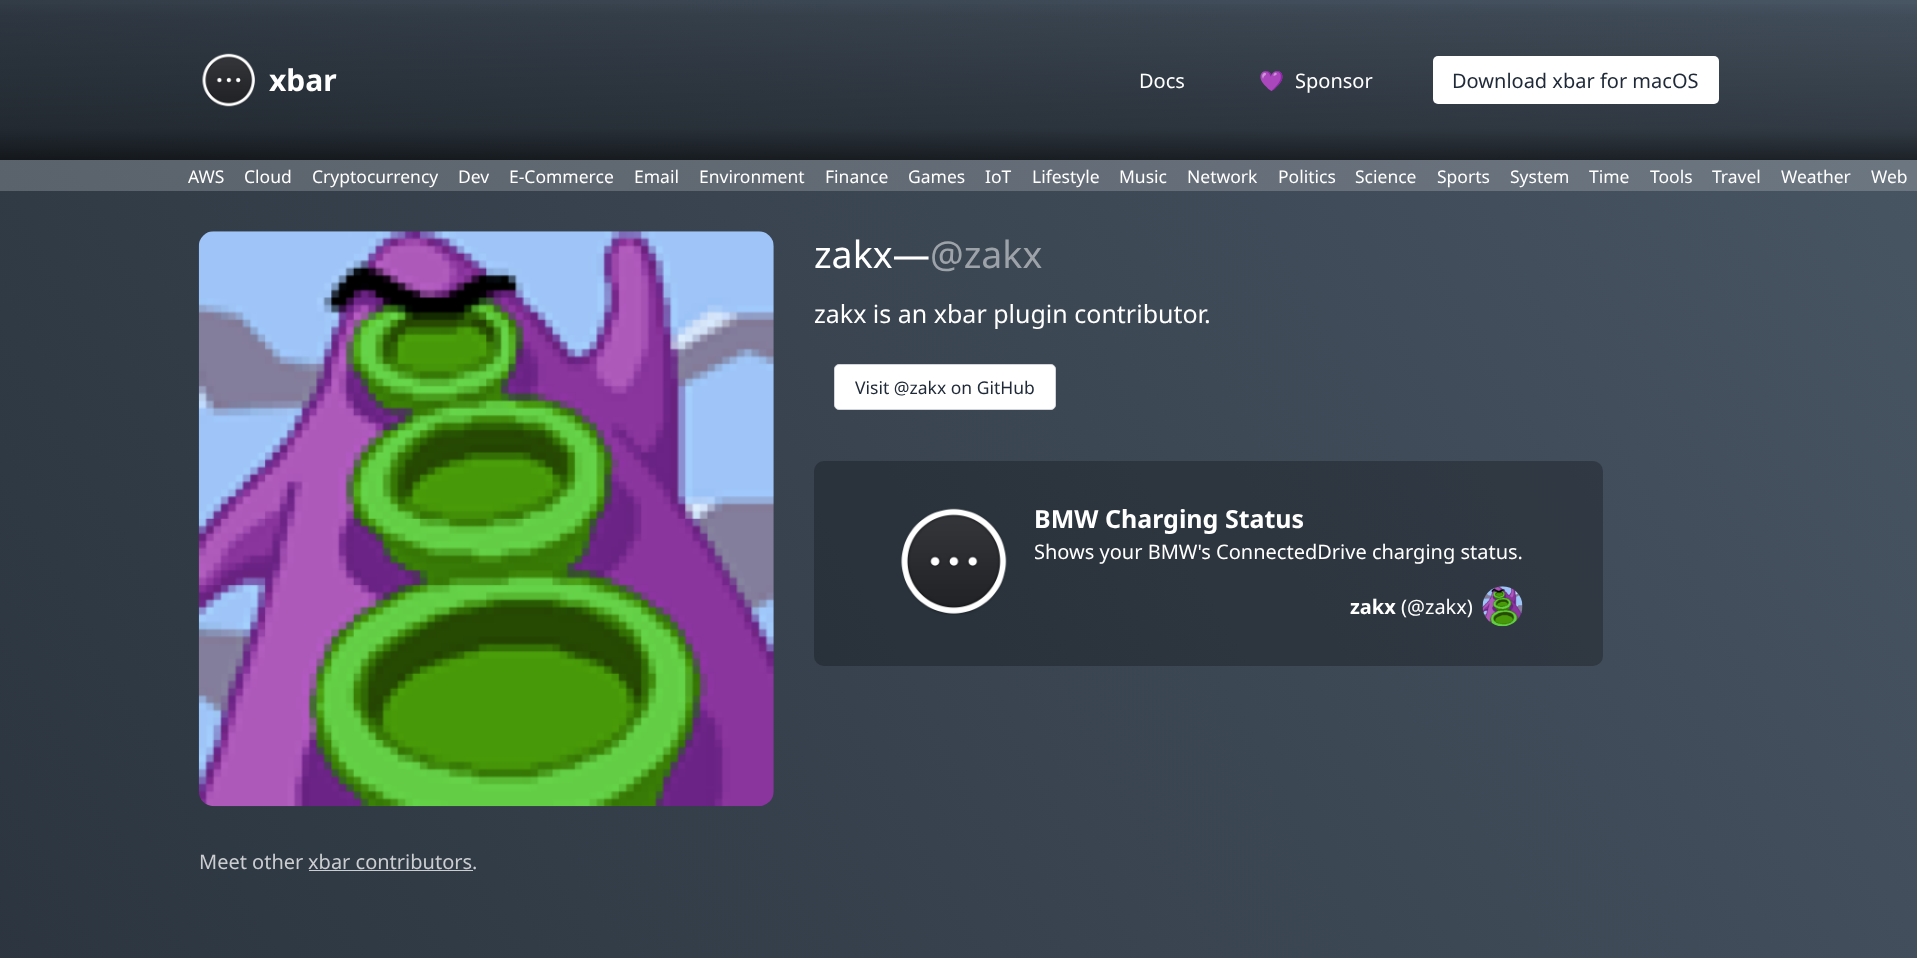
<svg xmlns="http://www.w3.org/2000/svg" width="1917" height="958">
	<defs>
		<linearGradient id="g1" gradientUnits="userSpaceOnUse" x1="-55" y1="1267" x2="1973" y2="96"><stop offset="0" stop-color="#29323C" /><stop offset="1" stop-color="#485563" /></linearGradient>
		<linearGradient id="g2" gradientUnits="userSpaceOnUse" x1="-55" y1="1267" x2="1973" y2="96"><stop offset="0" stop-color="#545B63" /><stop offset="1" stop-color="#6D7782" /></linearGradient>
		<linearGradient id="g3" gradientUnits="userSpaceOnUse" x1="959" y1="0" x2="959" y2="160"><stop offset="0" stop-color="#000000" stop-opacity="0" /><stop offset="0.1" stop-color="#000000" stop-opacity="0.1" /><stop offset="0.8" stop-color="#000000" stop-opacity="0.3" /><stop offset="1" stop-color="#000000" stop-opacity="0.6" /></linearGradient>
	</defs>
	<rect width="100%" height="100%" fill="#FFFFFF" />
	<rect x="0" y="0" width="1917" height="958" fill="url(#g1)" />
	<rect x="0" y="160" width="1917" height="31" fill="url(#g2)" />
	<rect x="0" y="4" width="1917" height="156" fill="url(#g3)" />
	<image x="202" y="53" width="53" height="54" href="assets/img1.png" />
	<text x="269" y="91" font-family="Noto Sans" font-size="30" font-weight="700" fill="#FFFFFF">xbar</text>
	<text x="1139" y="88" font-family="Noto Sans" font-size="20" fill="#FFFFFF">Docs</text>
	<text x="1259" y="88" font-family="Noto Color Emoji" font-size="20" fill="#FFFFFF">💜</text>
	<text x="1295" y="88" font-family="Noto Sans" font-size="20" fill="#FFFFFF">Sponsor</text>
	<rect x="1433" y="56" width="286" height="48" rx="5" fill="#FFFFFF" />
	<text x="1452" y="88" font-family="Noto Sans" font-size="20" fill="#1F2937">Download xbar for macOS</text>
	<g font-family="Noto Sans" font-size="17.5" fill="#FFFFFF">
		<text x="188" y="183">AWS</text>
		<text x="244" y="183">Cloud</text>
		<text x="312" y="183">Cryptocurrency</text>
		<text x="458" y="183">Dev</text>
		<text x="509" y="183">E-Commerce</text>
		<text x="634" y="183">Email</text>
		<text x="699" y="183">Environment</text>
		<text x="825" y="183">Finance</text>
		<text x="908" y="183">Games</text>
		<text x="985" y="183">IoT</text>
		<text x="1032" y="183">Lifestyle</text>
		<text x="1119" y="183">Music</text>
		<text x="1187" y="183">Network</text>
		<text x="1278" y="183">Politics</text>
		<text x="1355" y="183">Science</text>
		<text x="1437" y="183">Sports</text>
		<text x="1510" y="183">System</text>
		<text x="1589" y="183">Time</text>
		<text x="1650" y="183">Tools</text>
		<text x="1712" y="183">Travel</text>
		<text x="1781" y="183">Weather</text>
		<text x="1871" y="183">Web</text>
	</g>
	<text x="814" y="268" font-family="Noto Sans" font-size="37.5" fill="#FFFFFF">zakx—</text>
	<text x="930" y="268" font-family="Noto Sans" font-size="37.5" fill="#9DA3A9">@zakx</text>
	<text x="814" y="323" font-family="Noto Sans" font-size="25" fill="#FFFFFF">zakx is an xbar plugin contributor.</text>
	<rect x="834.5" y="364.5" width="221" height="45" rx="4.5" fill="#FFFFFF" stroke="#D1D5DB" />
	<text x="855" y="394" font-family="Noto Sans" font-size="17.5" fill="#1F2937">Visit @zakx on GitHub</text>
	<rect x="814" y="461" width="789" height="205" rx="10" fill="#000000" fill-opacity="0.25" />
	<image x="901" y="508" width="106" height="107" href="assets/img2.png" />
	<text x="1034" y="528" font-family="Noto Sans" font-size="25" font-weight="700" fill="#FFFFFF">BMW Charging Status</text>
	<text x="1034" y="559" font-family="Noto Sans" font-size="20" fill="#FFFFFF">Shows your BMW's ConnectedDrive charging status.</text>
	<text x="1350" y="614" font-family="Noto Sans" font-size="20" font-weight="700" fill="#FFFFFF">zakx</text>
	<text x="1401" y="614" font-family="Noto Sans" font-size="20" fill="#FFFFFF">(@zakx)</text>
	<image x="1482" y="586" width="41" height="41" href="assets/img3.png" />
	<image x="198" y="231" width="576" height="576" href="assets/img4.png" />
	<g font-family="Noto Sans" font-size="20" fill="#CBCDD0">
		<text x="199" y="869">Meet other</text>
		<text x="308" y="869">xbar contributors</text>
	</g>
	<rect x="309" y="870" width="164" height="1" fill="#CBCED1" />
	<text x="472" y="869" font-family="Noto Sans" font-size="20" fill="#CBCDD0">.</text>
</svg>
